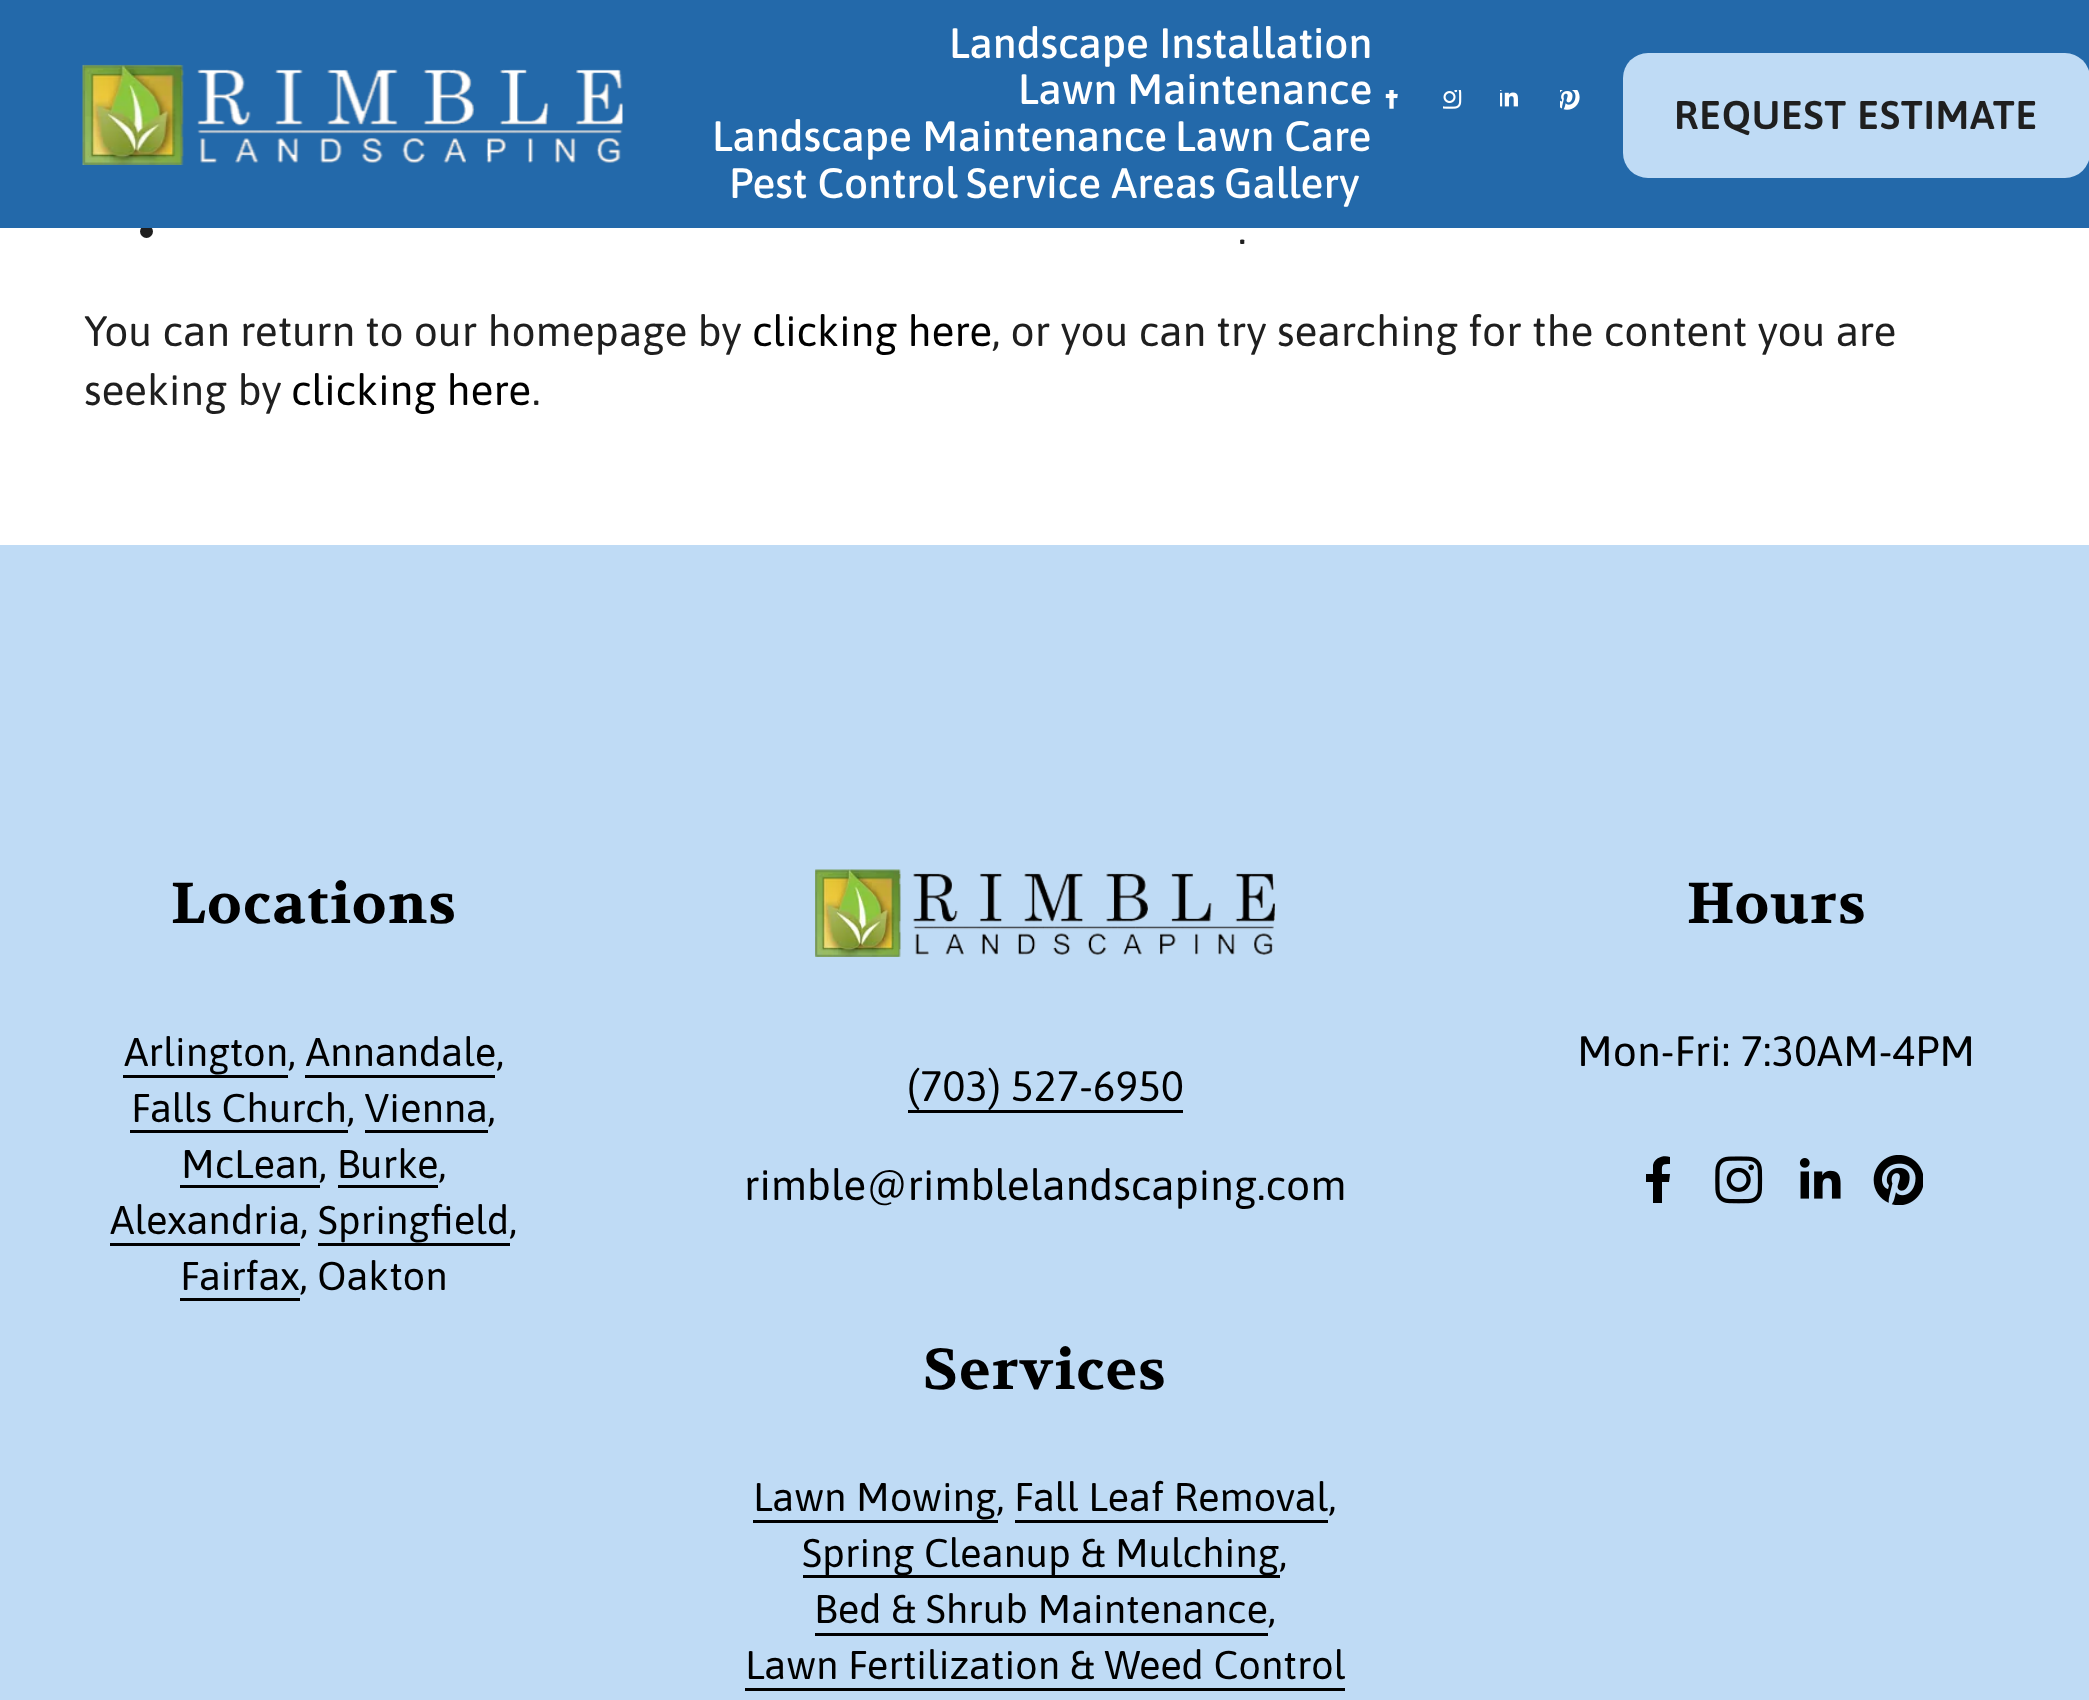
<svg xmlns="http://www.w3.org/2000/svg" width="2089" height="1700">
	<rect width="100%" height="100%" fill="#FFFFFF" />
	<circle cx="146.5" cy="231.5" r="6.5" fill="#1F1F1F" />
	<rect x="0" y="0" width="2089" height="228" fill="#2369AA" />
	<image x="82" y="64" width="541" height="101" href="assets/img1.png" />
	<g font-family="Asap" font-size="42.5" font-weight="500" fill="#FFFFFF">
		<text x="949" y="58">Landscape Installation</text>
		<text x="1018" y="104">Lawn Maintenance</text>
		<text x="712" y="151">Landscape Maintenance</text>
		<text x="1175" y="151">Lawn Care</text>
		<text x="729" y="198">Pest Control</text>
		<text x="966" y="198">Service Areas</text>
		<text x="1224" y="198">Gallery</text>
	</g>
	<image x="1385" y="90" width="13" height="19" href="assets/img2.png" />
	<image x="1443" y="90" width="19" height="19" href="assets/img3.png" />
	<image x="1500" y="90" width="18" height="17" href="assets/img4.png" />
	<image x="1560" y="90" width="20" height="20" href="assets/img5.png" />
	<rect x="1623" y="53" width="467" height="125" rx="25" fill="#BFDBF5" />
	<text x="1674" y="129" font-family="Asap" font-size="40" font-weight="600" letter-spacing="0.75" fill="#1F1F1F">REQUEST ESTIMATE</text>
	<g font-family="Asap" font-size="42.5" fill="#1F1F1F">
		<text x="1238" y="244">.</text>
		<text x="84" y="346">You can return to our homepage by</text>
	</g>
	<text x="752" y="346" font-family="Asap" font-size="42.5" fill="#000000">clicking here</text>
	<g font-family="Asap" font-size="42.5" fill="#1F1F1F">
		<text x="992" y="346">, or you can try searching for the content you are</text>
		<text x="84" y="405">seeking by</text>
	</g>
	<text x="291" y="405" font-family="Asap" font-size="42.5" fill="#000000">clicking here</text>
	<text x="532" y="405" font-family="Asap" font-size="42.5" fill="#1F1F1F">.</text>
	<rect x="0" y="545" width="2089" height="1155" fill="#BFDBF5" />
	<text x="171" y="923" font-family="Volkhov" font-size="57.5" font-weight="700" letter-spacing="1.25" fill="#000000">Locations</text>
	<text x="124" y="1066" font-family="Asap" font-size="40" fill="#000000">Arlington, Annandale,</text>
	<rect x="123" y="1075" width="165" height="3" fill="#000000" />
	<rect x="305" y="1075" width="190" height="3" fill="#000000" />
	<text x="131" y="1122" font-family="Asap" font-size="40" fill="#000000">Falls Church, Vienna,</text>
	<rect x="130" y="1130" width="218" height="3" fill="#000000" />
	<rect x="365" y="1130" width="123" height="3" fill="#000000" />
	<text x="181" y="1178" font-family="Asap" font-size="40" fill="#000000">McLean, Burke,</text>
	<rect x="180" y="1185" width="140" height="3" fill="#000000" />
	<rect x="338" y="1185" width="100" height="3" fill="#000000" />
	<text x="110" y="1234" font-family="Asap" font-size="40" fill="#000000">Alexandria, Springfield,</text>
	<rect x="110" y="1243" width="190" height="3" fill="#000000" />
	<rect x="318" y="1243" width="192" height="3" fill="#000000" />
	<text x="180" y="1290" font-family="Asap" font-size="40" fill="#000000">Fairfax, Oakton</text>
	<rect x="180" y="1298" width="120" height="3" fill="#000000" />
	<image x="815" y="869" width="460" height="88" href="assets/img6.png" />
	<text x="1687" y="923" font-family="Volkhov" font-size="57.5" font-weight="700" letter-spacing="1.25" fill="#000000">Hours</text>
	<g font-family="Asap" font-size="42.5" fill="#000000">
		<text x="1577" y="1066">Mon-Fri: 7:30AM-4PM</text>
		<text x="907" y="1101">(703) 527-6950</text>
	</g>
	<rect x="908" y="1110" width="275" height="3" fill="#000000" />
	<text x="744" y="1200" font-family="Asap" font-size="42.5" fill="#000000">rimble@rimblelandscaping.com</text>
	<path d="M1662 1203V1182H1669L1670 1174H1662C1662 1165 1661 1164 1670 1164V1157C1664 1155 1655 1157 1653 1165V1174H1646V1182H1653V1203Z" fill="#000000" />
	<image x="1715" y="1156" width="48" height="48" href="assets/img7.png" />
	<image x="1799" y="1158" width="42" height="41" href="assets/img8.png" />
	<image x="1873" y="1155" width="50" height="50" href="assets/img9.png" />
	<text x="923" y="1389" font-family="Volkhov" font-size="57.5" font-weight="700" letter-spacing="1.25" fill="#000000">Services</text>
	<text x="753" y="1511" font-family="Asap" font-size="40" fill="#000000">Lawn Mowing, Fall Leaf Removal,</text>
	<rect x="753" y="1520" width="245" height="3" fill="#000000" />
	<rect x="1015" y="1520" width="313" height="3" fill="#000000" />
	<rect x="803" y="1575" width="477" height="3" fill="#000000" />
	<g font-family="Asap" font-size="40" fill="#000000">
		<text x="802" y="1567">Spring Cleanup &amp; Mulching,</text>
		<text x="814" y="1623">Bed &amp; Shrub Maintenance,</text>
	</g>
	<rect x="815" y="1633" width="453" height="3" fill="#000000" />
	<text x="745" y="1679" font-family="Asap" font-size="40" fill="#000000">Lawn Fertilization &amp; Weed Control</text>
	<rect x="745" y="1688" width="600" height="3" fill="#000000" />
</svg>
